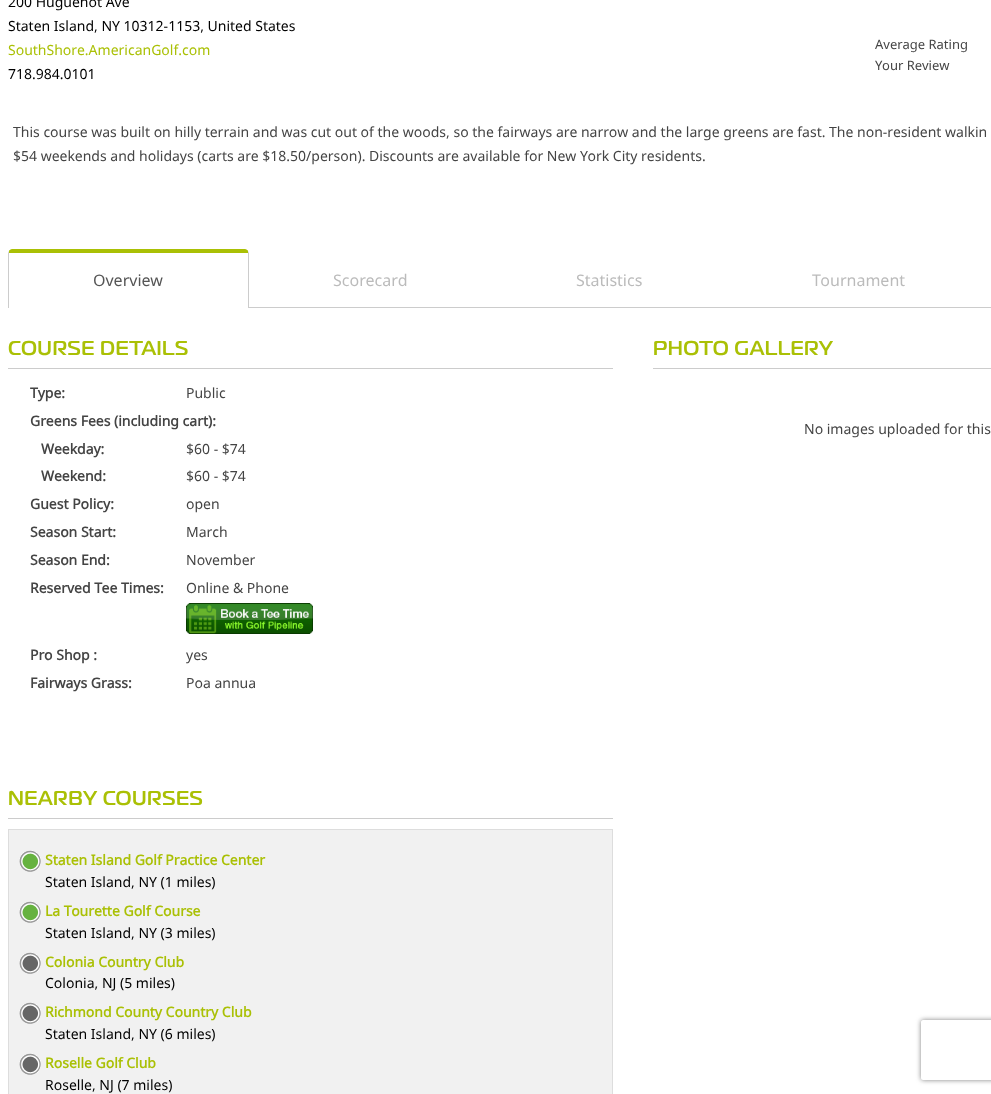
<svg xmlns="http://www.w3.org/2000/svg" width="991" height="1094">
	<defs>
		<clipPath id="clip1"><path d="M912 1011H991V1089H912ZM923 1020H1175C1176 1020 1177 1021 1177 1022V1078C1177 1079 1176 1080 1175 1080H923C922 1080 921 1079 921 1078V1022C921 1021 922 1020 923 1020Z" clip-rule="evenodd" /></clipPath>
	</defs>
	<rect width="100%" height="100%" fill="#FFFFFF" />
	<g font-family="Noto Sans" font-size="14" fill="#000000">
		<text x="8" y="7">200 Huguenot Ave</text>
		<text x="8" y="31">Staten Island, NY 10312-1153, United States</text>
	</g>
	<text x="8" y="55" font-family="Noto Sans" font-size="14" fill="#AAC005">SouthShore.AmericanGolf.com</text>
	<g font-family="Noto Sans" font-size="13" fill="#444444">
		<text x="875" y="49">Average Rating</text>
		<text x="875" y="70">Your Review</text>
	</g>
	<text x="8" y="79" font-family="Noto Sans" font-size="14" fill="#000000">718.984.0101</text>
	<g font-family="Noto Sans" font-size="14" fill="#444444">
		<text x="13" y="137">This course was built on hilly terrain and was cut out of the woods, so the fairways are narrow and the large greens are fast. The non-resident walkin</text>
		<text x="13" y="161">$54 weekends and holidays (carts are $18.50/person). Discounts are available for New York City residents.</text>
	</g>
	<path d="M12 249C11 249 9 250 9 251V253H248V251C248 250 246 249 245 249Z" fill="#AAC005" />
	<path d="M248 308H249V253L248 251V253Z" fill="#CCCCCC" />
	<path d="M8 308H9V253V251L8 253Z" fill="#CCCCCC" />
	<text x="93" y="286" font-family="Noto Sans" font-size="16" fill="#555555">Overview</text>
	<rect x="249" y="307" width="742" height="1" fill="#CCCCCC" />
	<g font-family="Noto Sans" font-size="16" fill="#BBBBBB">
		<text x="333" y="286">Scorecard</text>
		<text x="576" y="286">Statistics</text>
		<text x="812" y="286">Tournament</text>
	</g>
	<text x="8" y="355" font-family="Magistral" font-size="20" font-weight="500" letter-spacing="0.5" fill="#AAC005">COURSE DETAILS</text>
	<rect x="8" y="368" width="605" height="1" fill="#CCCCCC" />
	<text x="30" y="398" font-family="Noto Sans" font-size="14" font-weight="700" fill="#444444">Type:</text>
	<text x="186" y="398" font-family="Noto Sans" font-size="14" fill="#444444">Public</text>
	<g font-family="Noto Sans" font-size="14" font-weight="700" fill="#444444">
		<text x="30" y="426">Greens Fees (including cart):</text>
		<text x="41" y="454">Weekday:</text>
	</g>
	<text x="186" y="454" font-family="Noto Sans" font-size="14" fill="#444444">$60 - $74</text>
	<text x="41" y="481" font-family="Noto Sans" font-size="14" font-weight="700" fill="#444444">Weekend:</text>
	<text x="186" y="481" font-family="Noto Sans" font-size="14" fill="#444444">$60 - $74</text>
	<text x="30" y="509" font-family="Noto Sans" font-size="14" font-weight="700" fill="#444444">Guest Policy:</text>
	<text x="186" y="509" font-family="Noto Sans" font-size="14" fill="#444444">open</text>
	<text x="30" y="537" font-family="Noto Sans" font-size="14" font-weight="700" fill="#444444">Season Start:</text>
	<text x="186" y="537" font-family="Noto Sans" font-size="14" fill="#444444">March</text>
	<text x="30" y="565" font-family="Noto Sans" font-size="14" font-weight="700" fill="#444444">Season End:</text>
	<text x="186" y="565" font-family="Noto Sans" font-size="14" fill="#444444">November</text>
	<text x="30" y="593" font-family="Noto Sans" font-size="14" font-weight="700" fill="#444444">Reserved Tee Times:</text>
	<text x="186" y="593" font-family="Noto Sans" font-size="14" fill="#444444">Online &amp; Phone</text>
	<image x="186" y="603" width="127" height="31" href="assets/img1.png" />
	<text x="30" y="660" font-family="Noto Sans" font-size="14" font-weight="700" fill="#444444">Pro Shop :</text>
	<text x="186" y="660" font-family="Noto Sans" font-size="14" fill="#444444">yes</text>
	<text x="30" y="688" font-family="Noto Sans" font-size="14" font-weight="700" fill="#444444">Fairways Grass:</text>
	<text x="186" y="688" font-family="Noto Sans" font-size="14" fill="#444444">Poa annua</text>
	<text x="8" y="805" font-family="Magistral" font-size="20" font-weight="500" letter-spacing="0.5" fill="#AAC005">NEARBY COURSES</text>
	<rect x="8" y="818" width="605" height="1" fill="#CCCCCC" />
	<rect x="8.5" y="829.5" width="604" height="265" fill="#F1F1F1" stroke="#DDDDDD" />
	<image x="19" y="850" width="22" height="22" href="assets/img2.png" />
	<text x="45" y="865" font-family="Noto Sans" font-size="14" font-weight="700" fill="#AAC005">Staten Island Golf Practice Center</text>
	<text x="45" y="887" font-family="Noto Sans" font-size="14" fill="#000000">Staten Island, NY (1 miles)</text>
	<image x="19" y="901" width="22" height="22" href="assets/img2.png" />
	<text x="45" y="916" font-family="Noto Sans" font-size="14" font-weight="700" fill="#AAC005">La Tourette Golf Course</text>
	<text x="45" y="938" font-family="Noto Sans" font-size="14" fill="#000000">Staten Island, NY (3 miles)</text>
	<image x="19" y="952" width="22" height="22" href="assets/img3.png" />
	<text x="45" y="967" font-family="Noto Sans" font-size="14" font-weight="700" fill="#AAC005">Colonia Country Club</text>
	<text x="45" y="988" font-family="Noto Sans" font-size="14" fill="#000000">Colonia, NJ (5 miles)</text>
	<image x="19" y="1002" width="22" height="22" href="assets/img3.png" />
	<text x="45" y="1017" font-family="Noto Sans" font-size="14" font-weight="700" fill="#AAC005">Richmond County Country Club</text>
	<text x="45" y="1039" font-family="Noto Sans" font-size="14" fill="#000000">Staten Island, NY (6 miles)</text>
	<image x="19" y="1053" width="22" height="22" href="assets/img3.png" />
	<text x="45" y="1068" font-family="Noto Sans" font-size="14" font-weight="700" fill="#AAC005">Roselle Golf Club</text>
	<text x="45" y="1090" font-family="Noto Sans" font-size="14" fill="#000000">Roselle, NJ (7 miles)</text>
	<text x="653" y="355" font-family="Magistral" font-size="20" font-weight="500" letter-spacing="0.5" fill="#AAC005">PHOTO GALLERY</text>
	<rect x="653" y="368" width="338" height="1" fill="#CCCCCC" />
	<text x="804" y="434" font-family="Noto Sans" font-size="14" fill="#444444">No images uploaded for this</text>
	<g clip-path="url(#clip1)">
		<rect x="921" y="1020" width="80" height="60" rx="2" fill="#808080" filter="blur(2.5px)" />
	</g>
</svg>
